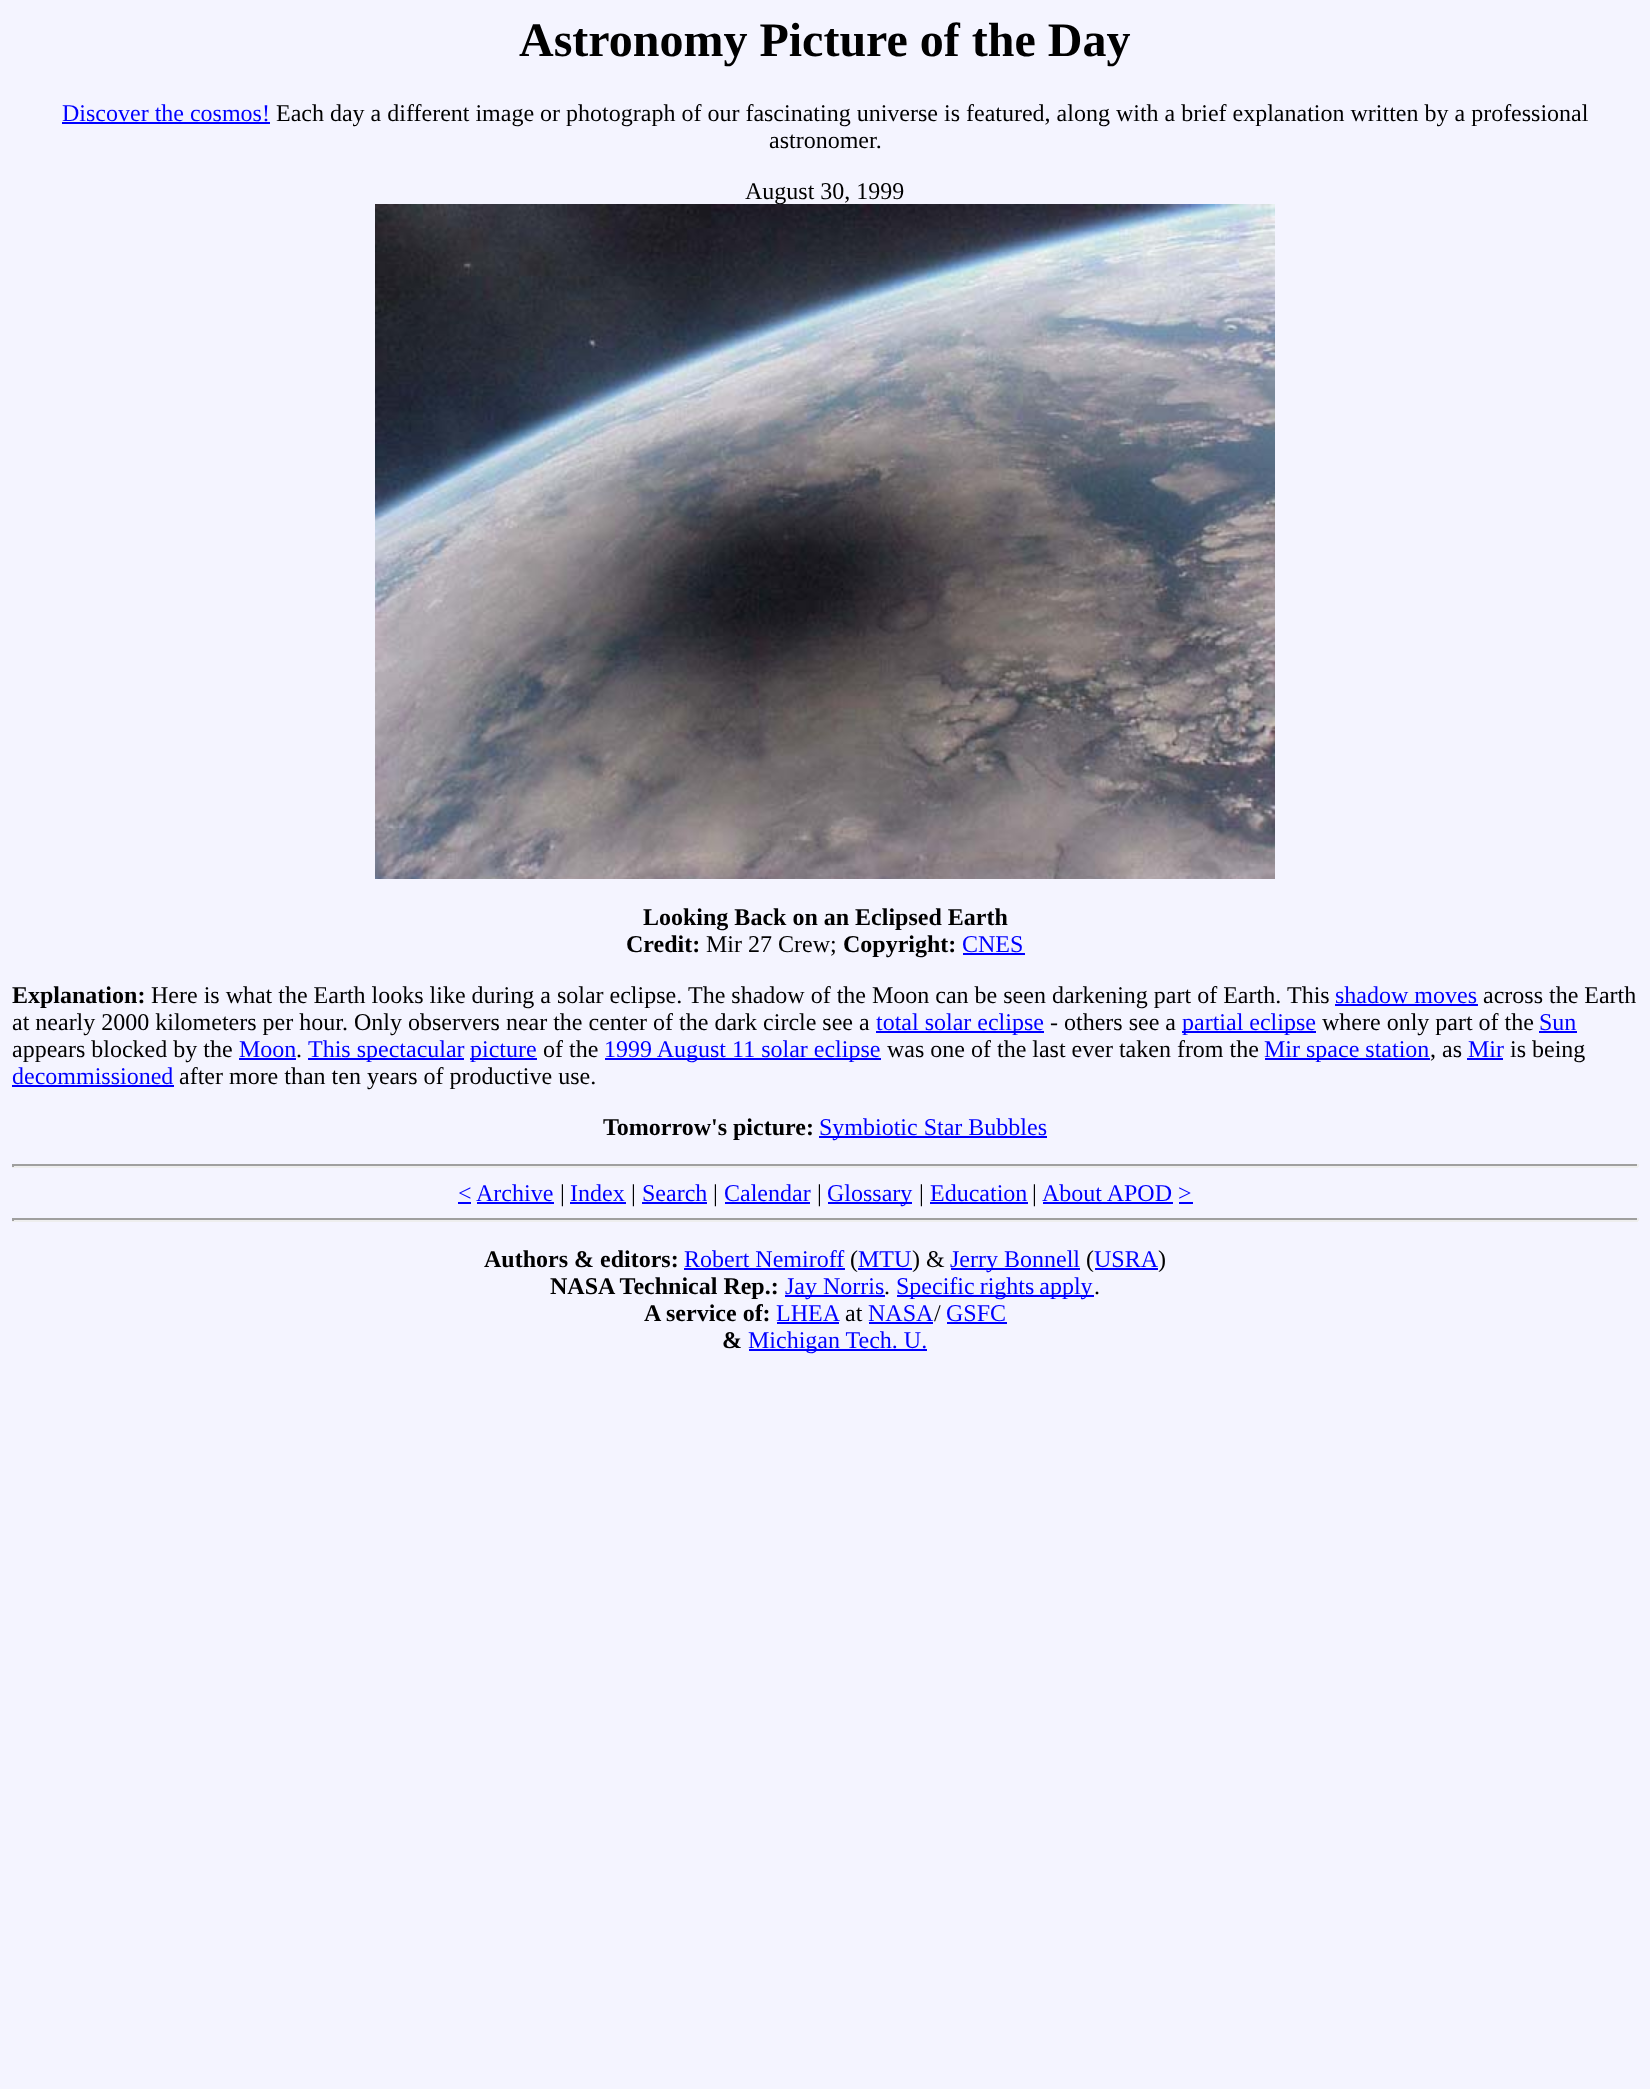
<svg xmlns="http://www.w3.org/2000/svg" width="1650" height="2089">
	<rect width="100%" height="100%" fill="#F4F4FF" />
	<text x="519" y="56" font-family="Liberation Serif" font-size="48" font-weight="700" fill="#000000">Astronomy Picture of the Day</text>
	<text x="62" y="121" font-family="Liberation Serif" font-size="24" fill="#0000FF">Discover the cosmos!</text>
	<rect x="62" y="122" width="208" height="2" fill="#0000FF" />
	<g font-family="Liberation Serif" font-size="24" fill="#000000">
		<text x="276" y="121">Each day a different image or photograph of our fascinating universe is featured, along with a brief explanation written by a professional</text>
		<text x="769" y="148">astronomer.</text>
		<text x="745" y="199">August 30, 1999</text>
	</g>
	<image x="375" y="204" width="900" height="675" href="assets/img1.png" />
	<g font-family="Liberation Serif" font-size="24" font-weight="700" fill="#000000">
		<text x="643" y="925">Looking Back on an Eclipsed Earth</text>
		<text x="626" y="952">Credit:</text>
	</g>
	<text x="706" y="952" font-family="Liberation Serif" font-size="24" fill="#000000">Mir 27 Crew;</text>
	<text x="843" y="952" font-family="Liberation Serif" font-size="24" font-weight="700" fill="#000000">Copyright:</text>
	<text x="962" y="952" font-family="Liberation Serif" font-size="24" fill="#0000FF">CNES</text>
	<rect x="963" y="953" width="62" height="2" fill="#0000FF" />
	<text x="12" y="1003" font-family="Liberation Serif" font-size="24" font-weight="700" fill="#000000">Explanation:</text>
	<g font-family="Liberation Serif" font-size="24" fill="#000000">
		<text x="151" y="1003">Here is what the Earth looks like during a solar eclipse.</text>
		<text x="688" y="1003">The shadow of the Moon can be seen darkening part of Earth.</text>
		<text x="1287" y="1003">This</text>
	</g>
	<text x="1335" y="1003" font-family="Liberation Serif" font-size="24" fill="#0000FF">shadow moves</text>
	<rect x="1335" y="1004" width="143" height="2" fill="#0000FF" />
	<g font-family="Liberation Serif" font-size="24" fill="#000000">
		<text x="1483" y="1003">across the Earth</text>
		<text x="12" y="1030">at nearly 2000 kilometers per hour. Only observers near the center of the dark circle see a</text>
	</g>
	<rect x="876" y="1031" width="168" height="2" fill="#0000FF" />
	<text x="876" y="1030" font-family="Liberation Serif" font-size="24" fill="#0000FF">total solar eclipse</text>
	<text x="1050" y="1030" font-family="Liberation Serif" font-size="24" fill="#000000">- others see a</text>
	<rect x="1182" y="1031" width="134" height="2" fill="#0000FF" />
	<text x="1182" y="1030" font-family="Liberation Serif" font-size="24" fill="#0000FF">partial eclipse</text>
	<text x="1322" y="1030" font-family="Liberation Serif" font-size="24" fill="#000000">where only part of the</text>
	<text x="1539" y="1030" font-family="Liberation Serif" font-size="24" fill="#0000FF">Sun</text>
	<rect x="1539" y="1031" width="38" height="2" fill="#0000FF" />
	<text x="12" y="1057" font-family="Liberation Serif" font-size="24" fill="#000000">appears blocked by the</text>
	<text x="239" y="1057" font-family="Liberation Serif" font-size="24" fill="#0000FF">Moon</text>
	<rect x="239" y="1058" width="57" height="2" fill="#0000FF" />
	<text x="296" y="1057" font-family="Liberation Serif" font-size="24" fill="#000000">.</text>
	<rect x="308" y="1058" width="156" height="2" fill="#0000FF" />
	<text x="308" y="1057" font-family="Liberation Serif" font-size="24" fill="#0000FF">This spectacular</text>
	<rect x="470" y="1058" width="67" height="2" fill="#0000FF" />
	<text x="470" y="1057" font-family="Liberation Serif" font-size="24" fill="#0000FF">picture</text>
	<text x="543" y="1057" font-family="Liberation Serif" font-size="24" fill="#000000">of the</text>
	<rect x="605" y="1058" width="276" height="2" fill="#0000FF" />
	<text x="604" y="1057" font-family="Liberation Serif" font-size="24" fill="#0000FF">1999 August 11 solar eclipse</text>
	<text x="887" y="1057" font-family="Liberation Serif" font-size="24" fill="#000000">was one of the last ever taken from the</text>
	<rect x="1265" y="1058" width="165" height="2" fill="#0000FF" />
	<text x="1264" y="1057" font-family="Liberation Serif" font-size="24" fill="#0000FF">Mir space station</text>
	<text x="1430" y="1057" font-family="Liberation Serif" font-size="24" fill="#000000">, as</text>
	<text x="1468" y="1057" font-family="Liberation Serif" font-size="24" fill="#0000FF">Mir</text>
	<rect x="1467" y="1058" width="36" height="2" fill="#0000FF" />
	<text x="1510" y="1057" font-family="Liberation Serif" font-size="24" fill="#000000">is being</text>
	<text x="12" y="1084" font-family="Liberation Serif" font-size="24" fill="#0000FF">decommissioned</text>
	<rect x="12" y="1085" width="162" height="2" fill="#0000FF" />
	<text x="179" y="1084" font-family="Liberation Serif" font-size="24" fill="#000000">after more than ten years of productive use.</text>
	<text x="603" y="1135" font-family="Liberation Serif" font-size="24" font-weight="700" fill="#000000">Tomorrow's picture:</text>
	<rect x="819" y="1136" width="228" height="2" fill="#0000FF" />
	<text x="819" y="1135" font-family="Liberation Serif" font-size="24" fill="#0000FF">Symbiotic Star Bubbles</text>
	<rect x="12" y="1164" width="1626" height="2" fill="#9F9F9F" />
	<rect x="1637" y="1164" width="2" height="3" fill="#EEEEEE" />
	<rect x="12" y="1166" width="1626" height="2" fill="#EEEEEE" />
	<rect x="12" y="1164" width="2" height="3" fill="#9F9F9F" />
	<text x="458" y="1201" font-family="Liberation Serif" font-size="24" fill="#0000FF">&lt;</text>
	<rect x="458" y="1202" width="13" height="2" fill="#0000FF" />
	<text x="476" y="1201" font-family="Liberation Serif" font-size="24" fill="#0000FF">Archive</text>
	<rect x="477" y="1202" width="77" height="2" fill="#0000FF" />
	<text x="560" y="1201" font-family="Liberation Serif" font-size="24" fill="#000000">|</text>
	<text x="570" y="1201" font-family="Liberation Serif" font-size="24" fill="#0000FF">Index</text>
	<rect x="570" y="1202" width="56" height="2" fill="#0000FF" />
	<text x="631" y="1201" font-family="Liberation Serif" font-size="24" fill="#000000">|</text>
	<text x="642" y="1201" font-family="Liberation Serif" font-size="24" fill="#0000FF">Search</text>
	<rect x="642" y="1202" width="65" height="2" fill="#0000FF" />
	<text x="713" y="1201" font-family="Liberation Serif" font-size="24" fill="#000000">|</text>
	<text x="724" y="1201" font-family="Liberation Serif" font-size="24" fill="#0000FF">Calendar</text>
	<rect x="725" y="1202" width="85" height="2" fill="#0000FF" />
	<text x="817" y="1201" font-family="Liberation Serif" font-size="24" fill="#000000">|</text>
	<rect x="828" y="1202" width="84" height="2" fill="#0000FF" />
	<text x="827" y="1201" font-family="Liberation Serif" font-size="24" fill="#0000FF">Glossary</text>
	<text x="919" y="1201" font-family="Liberation Serif" font-size="24" fill="#000000">|</text>
	<text x="930" y="1201" font-family="Liberation Serif" font-size="24" fill="#0000FF">Education</text>
	<rect x="930" y="1202" width="98" height="2" fill="#0000FF" />
	<text x="1032" y="1201" font-family="Liberation Serif" font-size="24" fill="#000000">|</text>
	<text x="1042" y="1201" font-family="Liberation Serif" font-size="24" fill="#0000FF">About APOD &gt;</text>
	<rect x="1043" y="1202" width="130" height="2" fill="#0000FF" />
	<rect x="1179" y="1202" width="14" height="2" fill="#0000FF" />
	<rect x="12" y="1218" width="1626" height="2" fill="#9F9F9F" />
	<rect x="1637" y="1218" width="2" height="3" fill="#EEEEEE" />
	<rect x="12" y="1220" width="1626" height="2" fill="#EEEEEE" />
	<rect x="12" y="1218" width="2" height="3" fill="#9F9F9F" />
	<text x="484" y="1267" font-family="Liberation Serif" font-size="24" font-weight="700" fill="#000000">Authors &amp; editors:</text>
	<text x="684" y="1267" font-family="Liberation Serif" font-size="24" fill="#0000FF">Robert Nemiroff</text>
	<rect x="684" y="1268" width="161" height="2" fill="#0000FF" />
	<text x="850" y="1267" font-family="Liberation Serif" font-size="24" fill="#000000">(</text>
	<text x="858" y="1267" font-family="Liberation Serif" font-size="24" fill="#0000FF">MTU</text>
	<rect x="858" y="1268" width="54" height="2" fill="#0000FF" />
	<text x="912" y="1267" font-family="Liberation Serif" font-size="24" fill="#000000">) &amp;</text>
	<rect x="951" y="1268" width="129" height="2" fill="#0000FF" />
	<text x="950" y="1267" font-family="Liberation Serif" font-size="24" fill="#0000FF">Jerry Bonnell</text>
	<text x="1086" y="1267" font-family="Liberation Serif" font-size="24" fill="#000000">(</text>
	<text x="1094" y="1267" font-family="Liberation Serif" font-size="24" fill="#0000FF">USRA</text>
	<rect x="1095" y="1268" width="63" height="2" fill="#0000FF" />
	<text x="1158" y="1267" font-family="Liberation Serif" font-size="24" fill="#000000">)</text>
	<text x="550" y="1294" font-family="Liberation Serif" font-size="24" font-weight="700" fill="#000000">NASA Technical Rep.:</text>
	<rect x="785" y="1295" width="100" height="2" fill="#0000FF" />
	<text x="785" y="1294" font-family="Liberation Serif" font-size="24" fill="#0000FF">Jay Norris</text>
	<text x="884" y="1294" font-family="Liberation Serif" font-size="24" fill="#000000">.</text>
	<rect x="897" y="1295" width="197" height="2" fill="#0000FF" />
	<text x="896" y="1294" word-spacing="-1" font-family="Liberation Serif" font-size="24" fill="#0000FF">Specific rights apply</text>
	<text x="1094" y="1294" font-family="Liberation Serif" font-size="24" fill="#000000">.</text>
	<text x="644" y="1321" font-family="Liberation Serif" font-size="24" font-weight="700" fill="#000000">A service of:</text>
	<text x="776" y="1321" font-family="Liberation Serif" font-size="24" fill="#0000FF">LHEA</text>
	<rect x="777" y="1322" width="62" height="2" fill="#0000FF" />
	<text x="845" y="1321" font-family="Liberation Serif" font-size="24" fill="#000000">at</text>
	<text x="868" y="1321" font-family="Liberation Serif" font-size="24" fill="#0000FF">NASA</text>
	<rect x="869" y="1322" width="64" height="2" fill="#0000FF" />
	<text x="934" y="1321" font-family="Liberation Serif" font-size="24" fill="#000000">/</text>
	<text x="946" y="1321" font-family="Liberation Serif" font-size="24" fill="#0000FF">GSFC</text>
	<rect x="947" y="1322" width="60" height="2" fill="#0000FF" />
	<text x="722" y="1348" font-family="Liberation Serif" font-size="24" font-weight="700" fill="#000000">&amp;</text>
	<rect x="749" y="1349" width="178" height="2" fill="#0000FF" />
	<text x="748" y="1348" font-family="Liberation Serif" font-size="24" fill="#0000FF">Michigan Tech. U.</text>
</svg>
